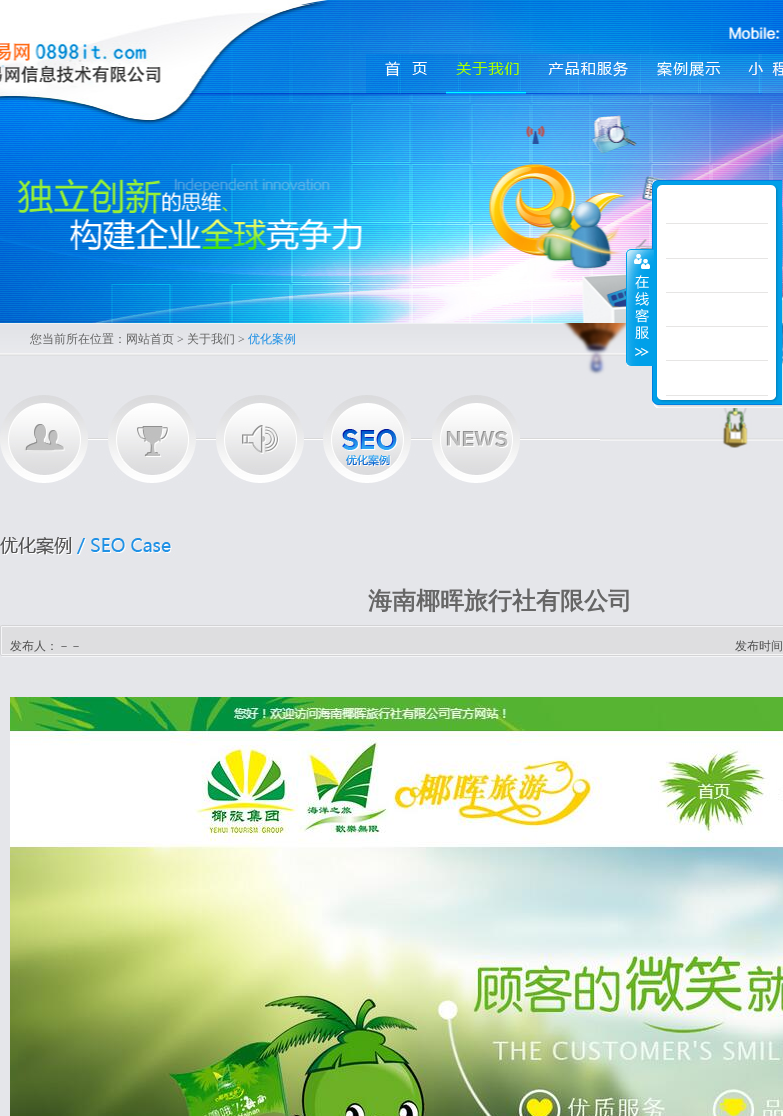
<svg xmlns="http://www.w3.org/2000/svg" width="783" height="1116">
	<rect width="100%" height="100%" fill="#FFFFFF" />
	<image x="0" y="0" width="783" height="323" href="assets/img5.png" />
	<image x="0" y="323" width="783" height="210" href="assets/img8.png" />
	<image x="652" y="190" width="130" height="206" href="assets/img4.png" />
	<image x="626" y="249" width="28" height="117" href="assets/img1.png" />
	<image x="652" y="396" width="130" height="12" href="assets/img2.png" />
	<image x="652" y="180" width="130" height="10" href="assets/img3.png" />
	<rect x="666" y="223" width="102" height="1" fill="#E6E5E4" />
	<rect x="666" y="258" width="102" height="1" fill="#E6E5E4" />
	<rect x="666" y="292" width="102" height="1" fill="#E6E5E4" />
	<rect x="666" y="326" width="102" height="1" fill="#E6E5E4" />
	<rect x="666" y="360" width="102" height="1" fill="#E6E5E4" />
	<rect x="666" y="395" width="102" height="1" fill="#E6E5E4" />
	<image x="366" y="54" width="417" height="40" href="assets/img6.png" />
	<image x="446" y="62" width="80" height="32" href="assets/img7.png" />
	<text x="30" y="343" font-family="WenQuanYi Zen Hei" font-size="12" font-weight="500" fill="#666666">您当前所在位置：网站首页</text>
	<text x="177" y="343" font-family="Liberation Serif" font-size="12" fill="#666666">&gt;</text>
	<text x="187" y="343" font-family="WenQuanYi Zen Hei" font-size="12" font-weight="500" fill="#666666">关于我们</text>
	<text x="238" y="343" font-family="Liberation Serif" font-size="12" fill="#666666">&gt;</text>
	<text x="248" y="343" font-family="WenQuanYi Zen Hei" font-size="12" font-weight="500" fill="#2091E5">优化案例</text>
	<image x="0" y="395" width="600" height="88" href="assets/img9.png" />
	<image x="336" y="428" width="63" height="39" href="assets/img10.png" />
	<rect x="0" y="533" width="783" height="583" fill="#E5E6EA" />
	<image x="0" y="535" width="783" height="122" href="assets/img11.png" />
	<text x="368" y="609" font-family="WenQuanYi Zen Hei" font-size="24" font-weight="700" fill="#666666">海南椰晖旅行社有限公司</text>
	<g font-family="WenQuanYi Zen Hei" font-size="12" font-weight="500" fill="#525252">
		<text x="10" y="650">发布人：－－</text>
		<text x="735" y="650">发布时间</text>
	</g>
	<image x="10" y="697" width="773" height="419" href="assets/img12.png" />
</svg>
